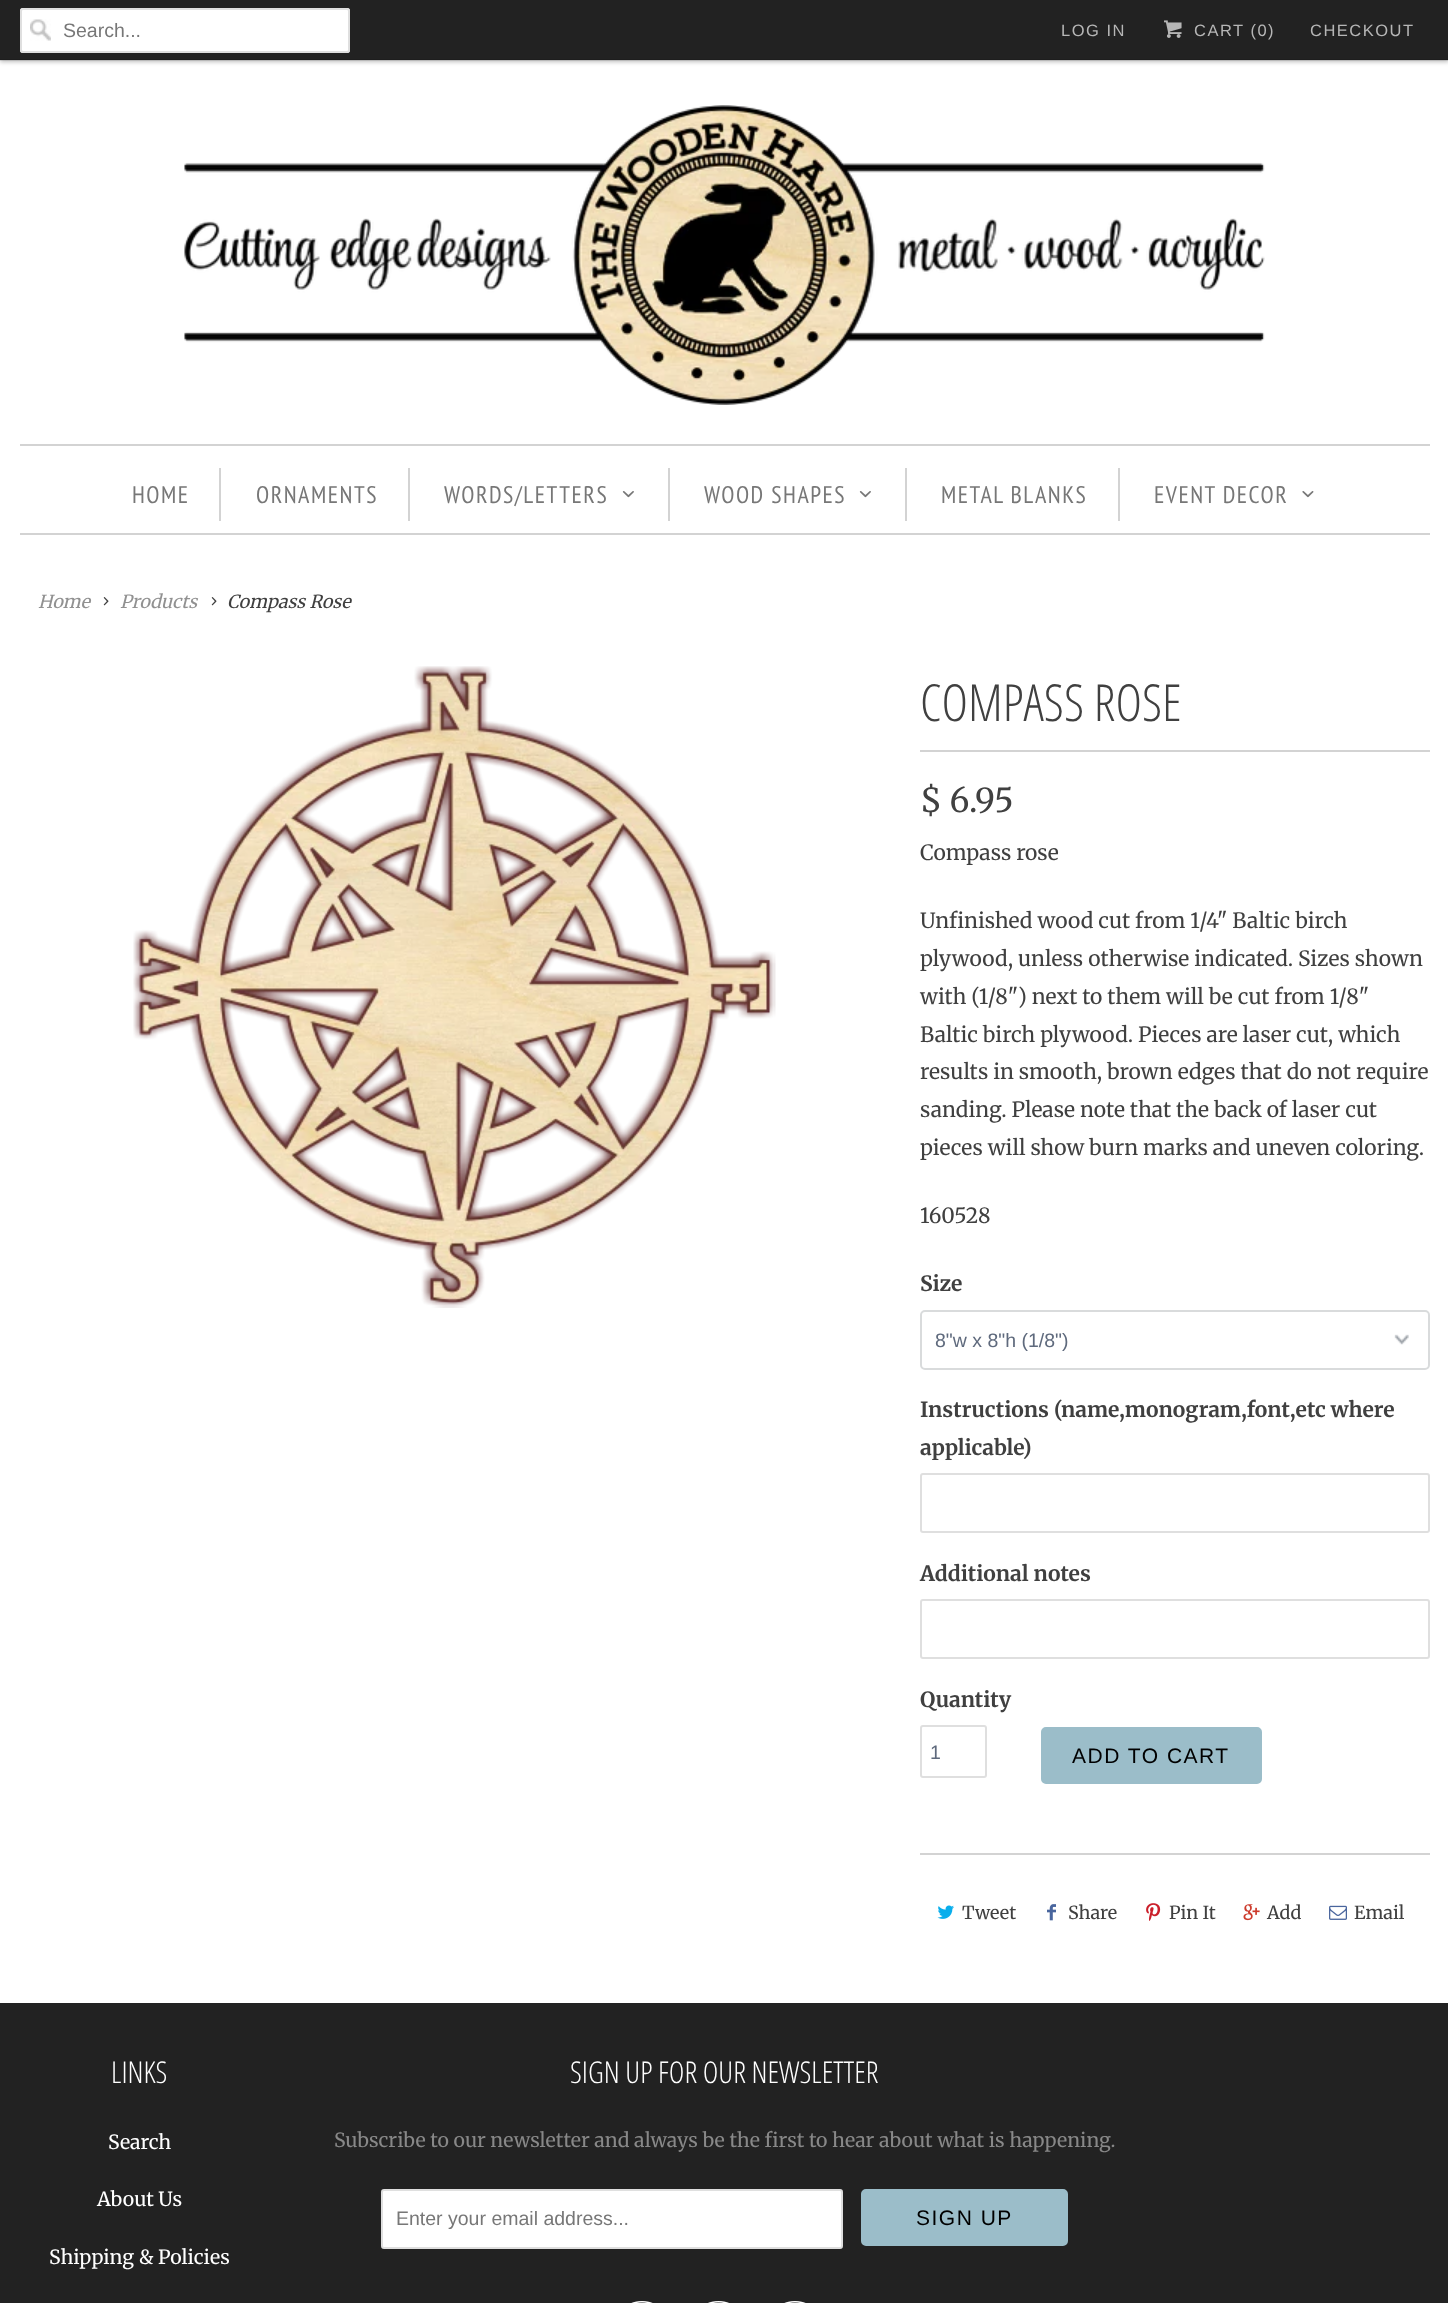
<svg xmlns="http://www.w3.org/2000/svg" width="1448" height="2303">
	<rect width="100%" height="100%" fill="#FFFFFF" />
	<rect x="0" y="2" width="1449" height="60" fill="#000000" fill-opacity="0.25" filter="blur(2px)" />
	<rect x="0" y="0" width="1448" height="60" fill="#222222" />
	<rect x="0" y="59" width="1448" height="2" fill="#000000" fill-opacity="0.1" />
	<rect x="20" y="8" width="330" height="45" rx="3" fill="#FFFFFF" />
	<image x="30" y="19" width="21" height="22" href="assets/img1.png" />
	<rect x="21" y="9" width="328" height="43" rx="2" fill="none" stroke="#DFDFDF" stroke-width="2" />
	<text x="63" y="37" font-family="Liberation Sans" font-size="19.5" fill="#777777">Search...</text>
	<text x="1061" y="36" font-family="Liberation Sans" font-size="16.5" letter-spacing="1.5" fill="#B6B6B6">LOG IN</text>
	<image x="1164" y="20" width="18" height="18" href="assets/img2.png" />
	<g font-family="Liberation Sans" font-size="16.5" letter-spacing="1.5" fill="#B6B6B6">
		<text x="1194" y="36">CART (0)</text>
		<text x="1310" y="36">CHECKOUT</text>
	</g>
	<image x="184" y="105" width="1081" height="300" href="assets/img3.png" />
	<rect x="20" y="444" width="1410" height="2" fill="#D3D3D3" />
	<rect x="20" y="533" width="1410" height="2" fill="#D3D3D3" />
	<rect x="219" y="468" width="2" height="53" fill="#D3D3D3" />
	<text x="132" y="503" font-family="PT Sans Narrow" font-size="24" letter-spacing="1.5" fill="#777777">HOME</text>
	<rect x="408" y="468" width="2" height="53" fill="#D3D3D3" />
	<text x="256" y="503" font-family="PT Sans Narrow" font-size="24" letter-spacing="1.5" fill="#777777">ORNAMENTS</text>
	<rect x="668" y="468" width="2" height="53" fill="#D3D3D3" />
	<text x="444" y="503" font-family="PT Sans Narrow" font-size="24" letter-spacing="1.5" fill="#777777">WORDS/LETTERS</text>
	<image x="622" y="491" width="12" height="7" href="assets/img4.png" />
	<rect x="905" y="468" width="2" height="53" fill="#D3D3D3" />
	<text x="704" y="503" font-family="PT Sans Narrow" font-size="24" letter-spacing="1.5" fill="#777777">WOOD SHAPES</text>
	<image x="859" y="491" width="12" height="7" href="assets/img4.png" />
	<rect x="1118" y="468" width="2" height="53" fill="#D3D3D3" />
	<g font-family="PT Sans Narrow" font-size="24" letter-spacing="1.5" fill="#777777">
		<text x="941" y="503">METAL BLANKS</text>
		<text x="1154" y="503">EVENT DECOR</text>
	</g>
	<image x="1302" y="491" width="12" height="7" href="assets/img5.png" />
	<text x="38" y="608" font-family="Merriweather" font-size="18" font-style="italic" fill="#919191">Home</text>
	<image x="103" y="597" width="6" height="9" href="assets/img6.png" />
	<text x="120" y="608" font-family="Merriweather" font-size="18" font-style="italic" fill="#919191">Products</text>
	<image x="211" y="597" width="6" height="9" href="assets/img6.png" />
	<text x="227" y="608" font-family="Merriweather" font-size="18" font-style="italic" fill="#404040">Compass Rose</text>
	<image x="133" y="666" width="643" height="642" href="assets/img7.png" />
	<rect x="920" y="750" width="510" height="2" fill="#D3D3D3" />
	<text x="920" y="721" font-family="Open Sans Condensed" font-size="51" font-weight="300" fill="#404040">COMPASS ROSE</text>
	<text x="920" y="812" font-family="Merriweather" font-size="33" fill="#404040">$ 6.95</text>
	<g font-family="Merriweather" font-size="21" fill="#404040">
		<text x="920" y="860">Compass rose</text>
		<text x="920" y="928">Unfinished wood cut from 1/4" Baltic birch</text>
		<text x="920" y="966">plywood, unless otherwise indicated. Sizes shown</text>
		<text x="920" y="1004">with (1/8") next to them will be cut from 1/8"</text>
		<text x="920" y="1042">Baltic birch plywood. Pieces are laser cut, which</text>
		<text x="920" y="1079">results in smooth, brown edges that do not require</text>
		<text x="920" y="1117">sanding. Please note that the back of laser cut</text>
		<text x="920" y="1155">pieces will show burn marks and uneven coloring.</text>
		<text x="920" y="1223">160528</text>
	</g>
	<text x="920" y="1291" font-family="Merriweather" font-size="21" font-weight="700" fill="#404040">Size</text>
	<image x="1394" y="1334" width="15" height="11" href="assets/img8.png" />
	<rect x="921" y="1311" width="508" height="58" rx="4" fill="none" stroke="#D9DBDC" stroke-width="2" />
	<text x="935" y="1347" font-family="Liberation Sans" font-size="19.5" fill="#5F6A7D">8"w x 8"h (1/8")</text>
	<g font-family="Merriweather" font-size="21" font-weight="700" fill="#404040">
		<text x="920" y="1417">Instructions (name,monogram,font,etc where</text>
		<text x="920" y="1455">applicable)</text>
	</g>
	<rect x="921" y="1474" width="508" height="58" rx="2" fill="none" stroke="#DFDFDF" stroke-width="2" />
	<text x="920" y="1581" font-family="Merriweather" font-size="21" font-weight="700" fill="#404040">Additional notes</text>
	<rect x="921" y="1600" width="508" height="58" rx="2" fill="none" stroke="#DFDFDF" stroke-width="2" />
	<text x="920" y="1707" font-family="Merriweather" font-size="21" font-weight="700" fill="#404040">Quantity</text>
	<rect x="921" y="1726" width="65" height="51" rx="2" fill="none" stroke="#DFDFDF" stroke-width="2" />
	<text x="930" y="1759" font-family="Liberation Sans" font-size="19.5" fill="#5F6A7D">1</text>
	<rect x="1042" y="1728" width="219" height="55" rx="4" fill="#9BBDC9" stroke="#9BBDC9" stroke-width="2" />
	<text x="1072" y="1763" font-family="Liberation Sans" font-size="21" letter-spacing="1.5" fill="#000000">ADD TO CART</text>
	<rect x="920" y="1853" width="510" height="2" fill="#D3D3D3" />
	<image x="937" y="1905" width="17" height="14" href="assets/img9.png" />
	<text x="962" y="1919" font-family="Merriweather" font-size="18" fill="#404040">Tweet</text>
	<image x="1047" y="1904" width="9" height="17" href="assets/img10.png" />
	<text x="1068" y="1919" font-family="Merriweather" font-size="18" fill="#404040">Share</text>
	<image x="1146" y="1903" width="15" height="18" href="assets/img11.png" />
	<text x="1169" y="1919" font-family="Merriweather" font-size="18" fill="#404040">Pin It</text>
	<image x="1243" y="1904" width="17" height="17" href="assets/img12.png" />
	<text x="1267" y="1919" font-family="Merriweather" font-size="18" fill="#404040">Add</text>
	<image x="1329" y="1905" width="18" height="15" href="assets/img13.png" />
	<text x="1354" y="1919" font-family="Merriweather" font-size="18" fill="#404040">Email</text>
	<rect x="0" y="2003" width="1448" height="300" fill="#222222" />
	<text x="111" y="2083" font-family="Open Sans Condensed" font-size="30" font-weight="300" fill="#FFFFFF">LINKS</text>
	<g font-family="Merriweather" font-size="19.5" fill="#FFFFFF">
		<text x="108" y="2149">Search</text>
		<text x="97" y="2206">About Us</text>
		<text x="49" y="2264">Shipping &amp; Policies</text>
	</g>
	<text x="570" y="2083" font-family="Open Sans Condensed" font-size="30" font-weight="300" fill="#FFFFFF">SIGN UP FOR OUR NEWSLETTER</text>
	<text x="334" y="2147" font-family="Merriweather" font-size="19.5" fill="#888888">Subscribe to our newsletter and always be the first to hear about what is happening.</text>
	<rect x="382" y="2190" width="460" height="58" rx="2" fill="#FFFFFF" stroke="#DFDFDF" stroke-width="2" />
	<text x="396" y="2225" font-family="Liberation Sans" font-size="19.5" fill="#777777">Enter your email address...</text>
	<rect x="862" y="2190" width="205" height="55" rx="4" fill="#9BBDC9" stroke="#9BBDC9" stroke-width="2" />
	<text x="916" y="2225" font-family="Liberation Sans" font-size="21" letter-spacing="1.5" fill="#000000">SIGN UP</text>
	<image x="631" y="2301" width="22" height="2" href="assets/img14.png" />
	<image x="708" y="2301" width="21" height="2" href="assets/img15.png" />
	<image x="784" y="2301" width="22" height="2" href="assets/img14.png" />
</svg>
